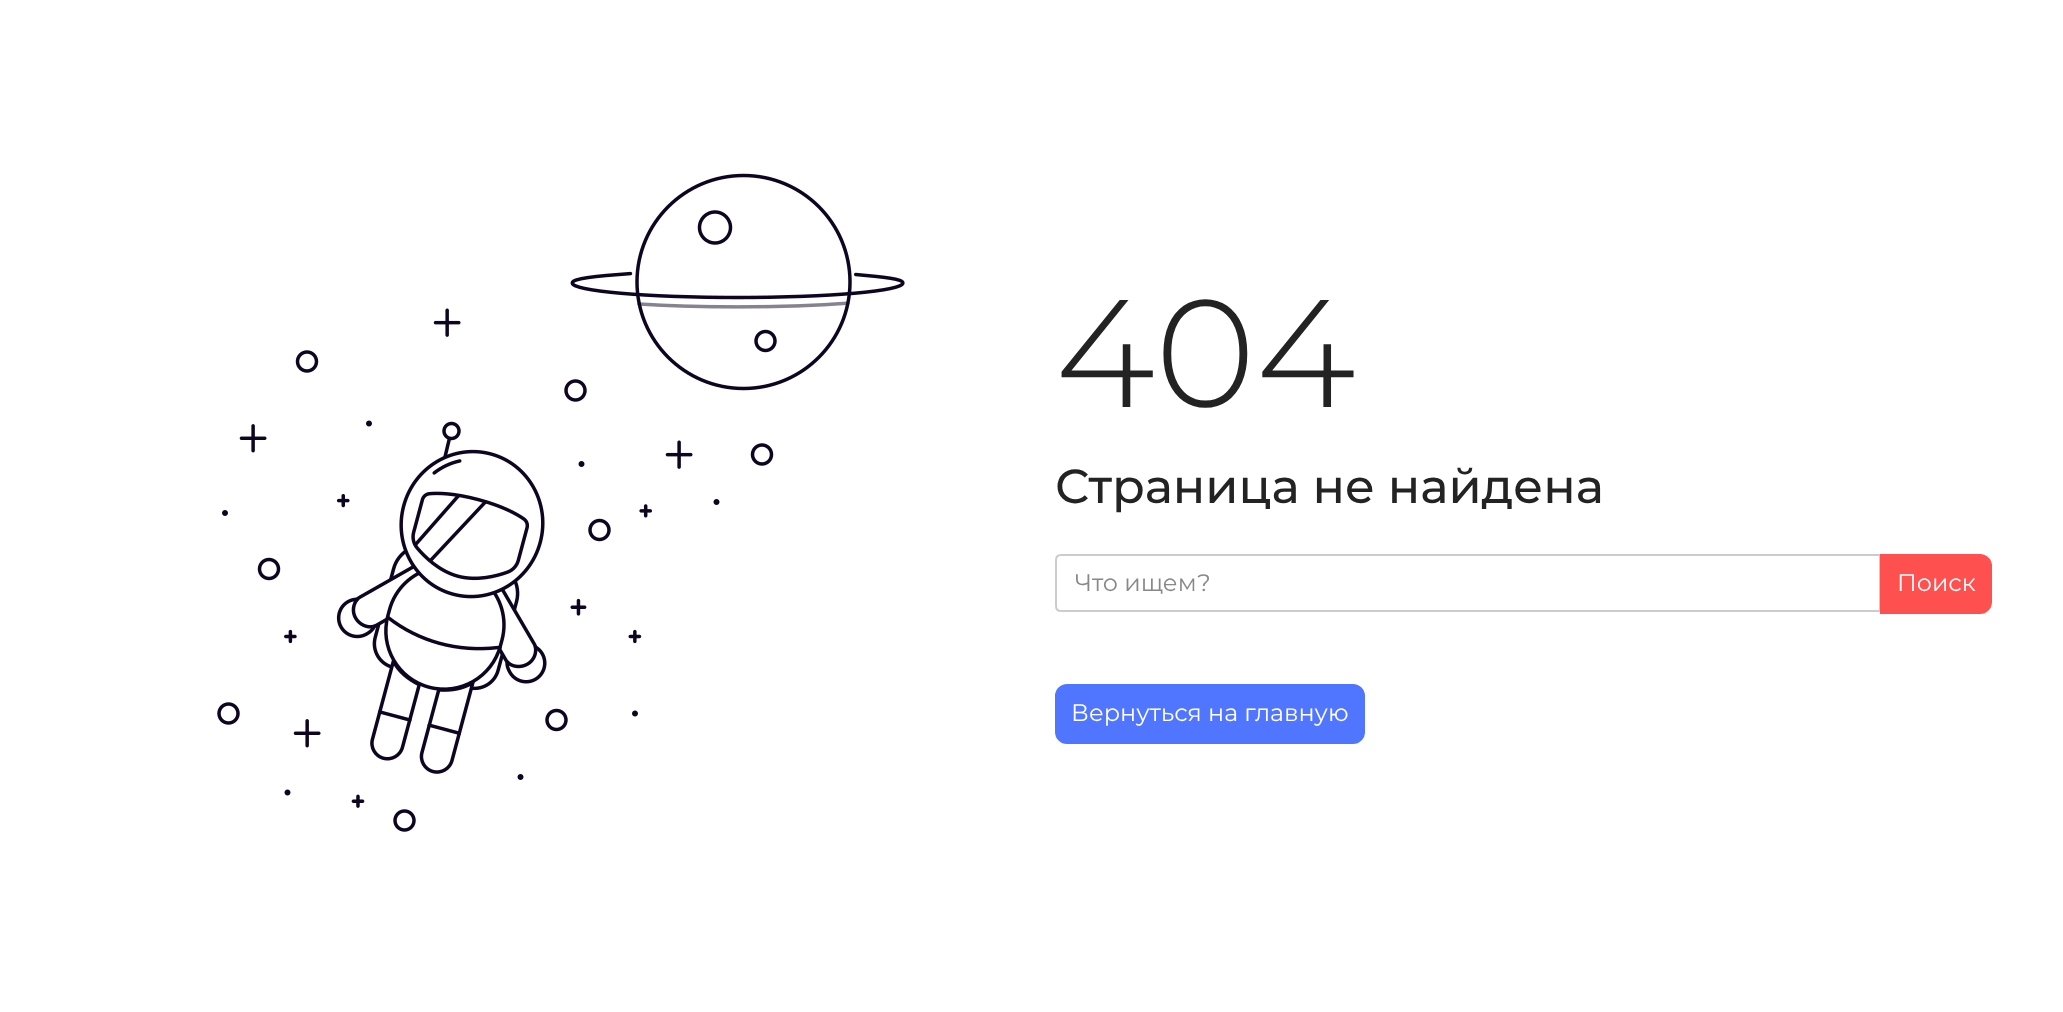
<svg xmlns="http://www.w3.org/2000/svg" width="2063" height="1012">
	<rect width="100%" height="100%" fill="#FFFFFF" />
	<image x="217" y="173" width="688" height="659" href="assets/img1.png" />
	<text x="1055" y="407" font-family="Montserrat" font-size="153" font-weight="300" fill="#232323">404</text>
	<text x="1055" y="503" font-family="Montserrat" font-size="47.75" font-weight="500" fill="#232323">Страница не найдена</text>
	<path d="M1061 555H1880V611H1061C1058 611 1056 609 1056 606V560C1056 557 1058 555 1061 555Z" fill="none" stroke="#CCCCCC" stroke-width="2" />
	<text x="1075" y="591" font-family="Montserrat" font-size="23.9" fill="#888888">Что ищем?</text>
	<path d="M1881 555H1980C1986 555 1991 560 1991 566V602C1991 608 1986 613 1980 613H1881Z" fill="#FF5050" stroke="#FF5050" stroke-width="2" />
	<text x="1897" y="591" font-family="Montserrat" font-size="23.9" fill="#FFFFFF">Поиск</text>
	<rect x="1056" y="685" width="308" height="58" rx="11" fill="#5076FF" stroke="#5076FF" stroke-width="2" />
	<text x="1071" y="721" font-family="Montserrat" font-size="23.9" fill="#FFFFFF">Вернуться на главную</text>
</svg>
